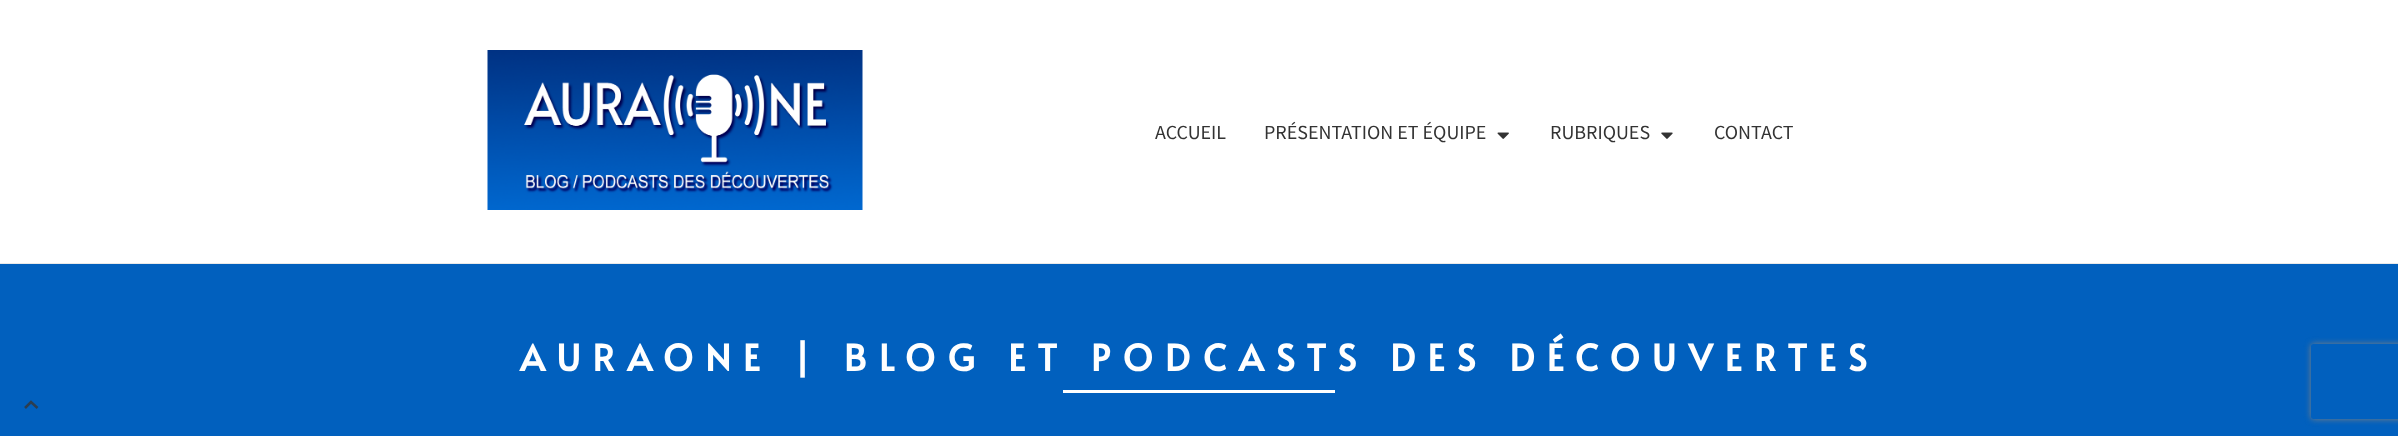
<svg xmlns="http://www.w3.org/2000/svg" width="2398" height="436">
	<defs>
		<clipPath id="clip1"><path d="M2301 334H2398V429H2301ZM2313.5 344H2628.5C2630 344 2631 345 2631 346.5V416.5C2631 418 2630 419 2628.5 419H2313.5C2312 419 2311 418 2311 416.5V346.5C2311 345 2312 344 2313.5 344Z" clip-rule="evenodd" /></clipPath>
	</defs>
	<rect width="100%" height="100%" fill="#FFFFFF" />
	<rect x="-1" y="263" width="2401" height="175" fill="#B6B6B6" fill-opacity="0.3" filter="blur(0.5px)" />
	<rect x="0" y="264" width="2398" height="172" fill="#0160BE" />
	<path d="M37.5 408L31 402L25 408" fill="none" stroke="#2C3E50" stroke-width="2.5" />
	<image x="487" y="50" width="376" height="160" href="assets/img1.png" />
	<g font-family="Source Sans Pro" font-size="20" fill="#333333">
		<text x="1155" y="139">ACCUEIL</text>
		<text x="1264" y="139">PRÉSENTATION ET ÉQUIPE</text>
	</g>
	<image x="1497" y="132" width="12" height="7" href="assets/img2.png" />
	<text x="1550" y="139" font-family="Source Sans Pro" font-size="20" fill="#333333">RUBRIQUES</text>
	<image x="1661" y="132" width="12" height="7" href="assets/img3.png" />
	<text x="1714" y="139" font-family="Source Sans Pro" font-size="20" fill="#333333">CONTACT</text>
	<text x="520" y="371" font-family="Alata" font-size="36" font-weight="700" letter-spacing="12.5" fill="#FFFFFF">AURAONE | BLOG ET PODCASTS DES DÉCOUVERTES</text>
	<rect x="1063" y="390" width="272" height="3" fill="#FFFFFF" />
	<g clip-path="url(#clip1)">
		<rect x="2311" y="344" width="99" height="75" rx="2.5" fill="#808080" filter="blur(3px)" />
	</g>
</svg>
